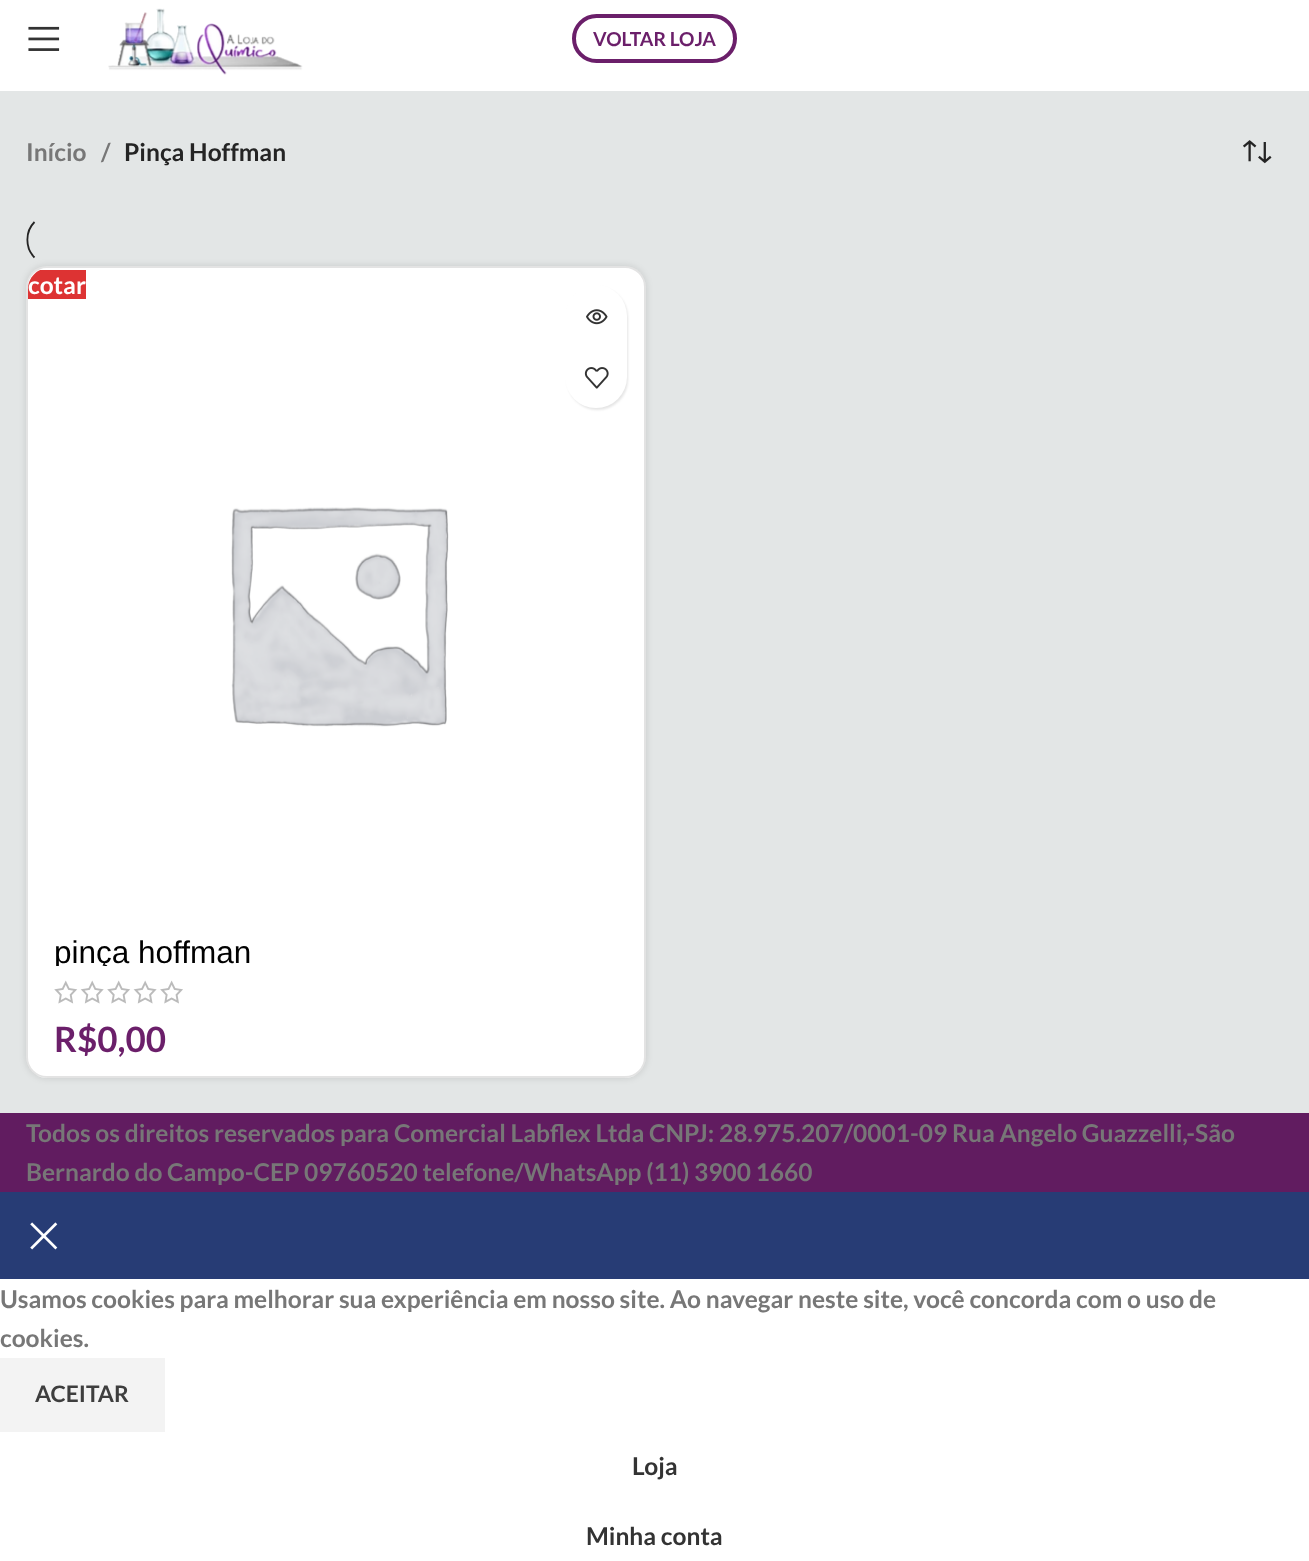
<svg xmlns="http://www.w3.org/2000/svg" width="1309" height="1561">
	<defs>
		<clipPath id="clip1"><path d="M49 268H623C634.5 268 644 277.5 644 289V919H28V289C28 277.5 37.5 268 49 268Z" /></clipPath>
		<clipPath id="clip2"><rect x="54" y="938" width="564" height="28" /></clipPath>
	</defs>
	<rect width="100%" height="100%" fill="#FFFFFF" />
	<image x="28" y="26" width="32" height="25" href="assets/img1.png" />
	<image x="108" y="8" width="195" height="67" href="assets/img2.png" />
	<rect x="574" y="16" width="161" height="45" rx="22.5" fill="none" stroke="#6B1F6A" stroke-width="4" />
	<text x="593" y="46" font-family="Lato" font-size="19.25" font-weight="700" fill="#6B1F6A">VOLTAR LOJA</text>
	<rect x="0" y="91" width="1309" height="1022" fill="#E3E6E6" />
	<g font-family="Lato" font-size="24.5" font-weight="700" fill="#777777">
		<text x="26" y="161">Início</text>
		<text x="101" y="161">/</text>
	</g>
	<text x="124" y="161" font-family="Lato" font-size="24.5" font-weight="700" fill="#242424">Pinça Hoffman</text>
	<image x="1243" y="140" width="29" height="24" href="assets/img3.png" />
	<path d="M34.5 257.5C25 248 25 231.5 34.5 222" fill="none" stroke="#242424" stroke-width="1.8" />
	<rect x="26" y="266" width="620" height="812" rx="21" fill="#000000" fill-opacity="0.12" filter="blur(3.5px)" />
	<rect x="26" y="266" width="620" height="812" rx="21" fill="#FFFFFF" />
	<rect x="27" y="267" width="618" height="810" rx="20" fill="none" stroke="#000000" stroke-opacity="0.11" stroke-width="2" />
	<g clip-path="url(#clip1)">
		<rect x="28" y="270" width="58" height="29" fill="#DD3333" />
	</g>
	<text x="28" y="294" font-family="Lato" font-size="24.5" font-weight="700" fill="#FFFFFF">cotar</text>
	<image x="231" y="507" width="218" height="220" href="assets/img4.png" />
	<rect x="567" y="287" width="61" height="123" rx="30.5" fill="#000000" fill-opacity="0.1" filter="blur(1px)" />
	<rect x="565" y="285" width="62" height="123" rx="31" fill="#FFFFFF" />
	<image x="586" y="309" width="22" height="16" href="assets/img5.png" />
	<image x="584" y="367" width="25" height="22" href="assets/img6.png" />
	<g clip-path="url(#clip2)">
		<text x="54" y="963" font-family="Liberation Sans" font-size="31.5" fill="#000000">pinça hoffman</text>
	</g>
	<image x="54" y="980" width="129" height="24" href="assets/img7.png" />
	<text x="54" y="1052" font-family="Lato" font-size="35" font-weight="700" fill="#6B1F6A">R$0,00</text>
	<rect x="0" y="1113" width="1309" height="79" fill="#611C60" />
	<g font-family="Lato" font-size="24.5" font-weight="700" fill="#777777">
		<text x="26" y="1142">Todos os direitos reservados para Comercial Labflex Ltda CNPJ: 28.975.207/0001-09 Rua Angelo Guazzelli,-São</text>
		<text x="26" y="1181">Bernardo do Campo-CEP 09760520 telefone/WhatsApp (11) 3900 1660</text>
	</g>
	<rect x="0" y="1192" width="1309" height="87" fill="#273C75" />
	<image x="30" y="1222" width="28" height="28" href="assets/img8.png" />
	<g font-family="Lato" font-size="24.5" font-weight="700" fill="#777777">
		<text x="0" y="1308">Usamos cookies para melhorar sua experiência em nosso site. Ao navegar neste site, você concorda com o uso de</text>
		<text x="0" y="1347">cookies.</text>
	</g>
	<rect x="0" y="1358" width="165" height="74" fill="#F3F3F3" />
	<text x="35" y="1402" font-family="Lato" font-size="22.75" font-weight="700" fill="#3E3E3E">ACEITAR</text>
	<g font-family="Lato" font-size="24.5" font-weight="700" fill="#333333">
		<text x="632" y="1475">Loja</text>
		<text x="586" y="1545">Minha conta</text>
	</g>
</svg>
